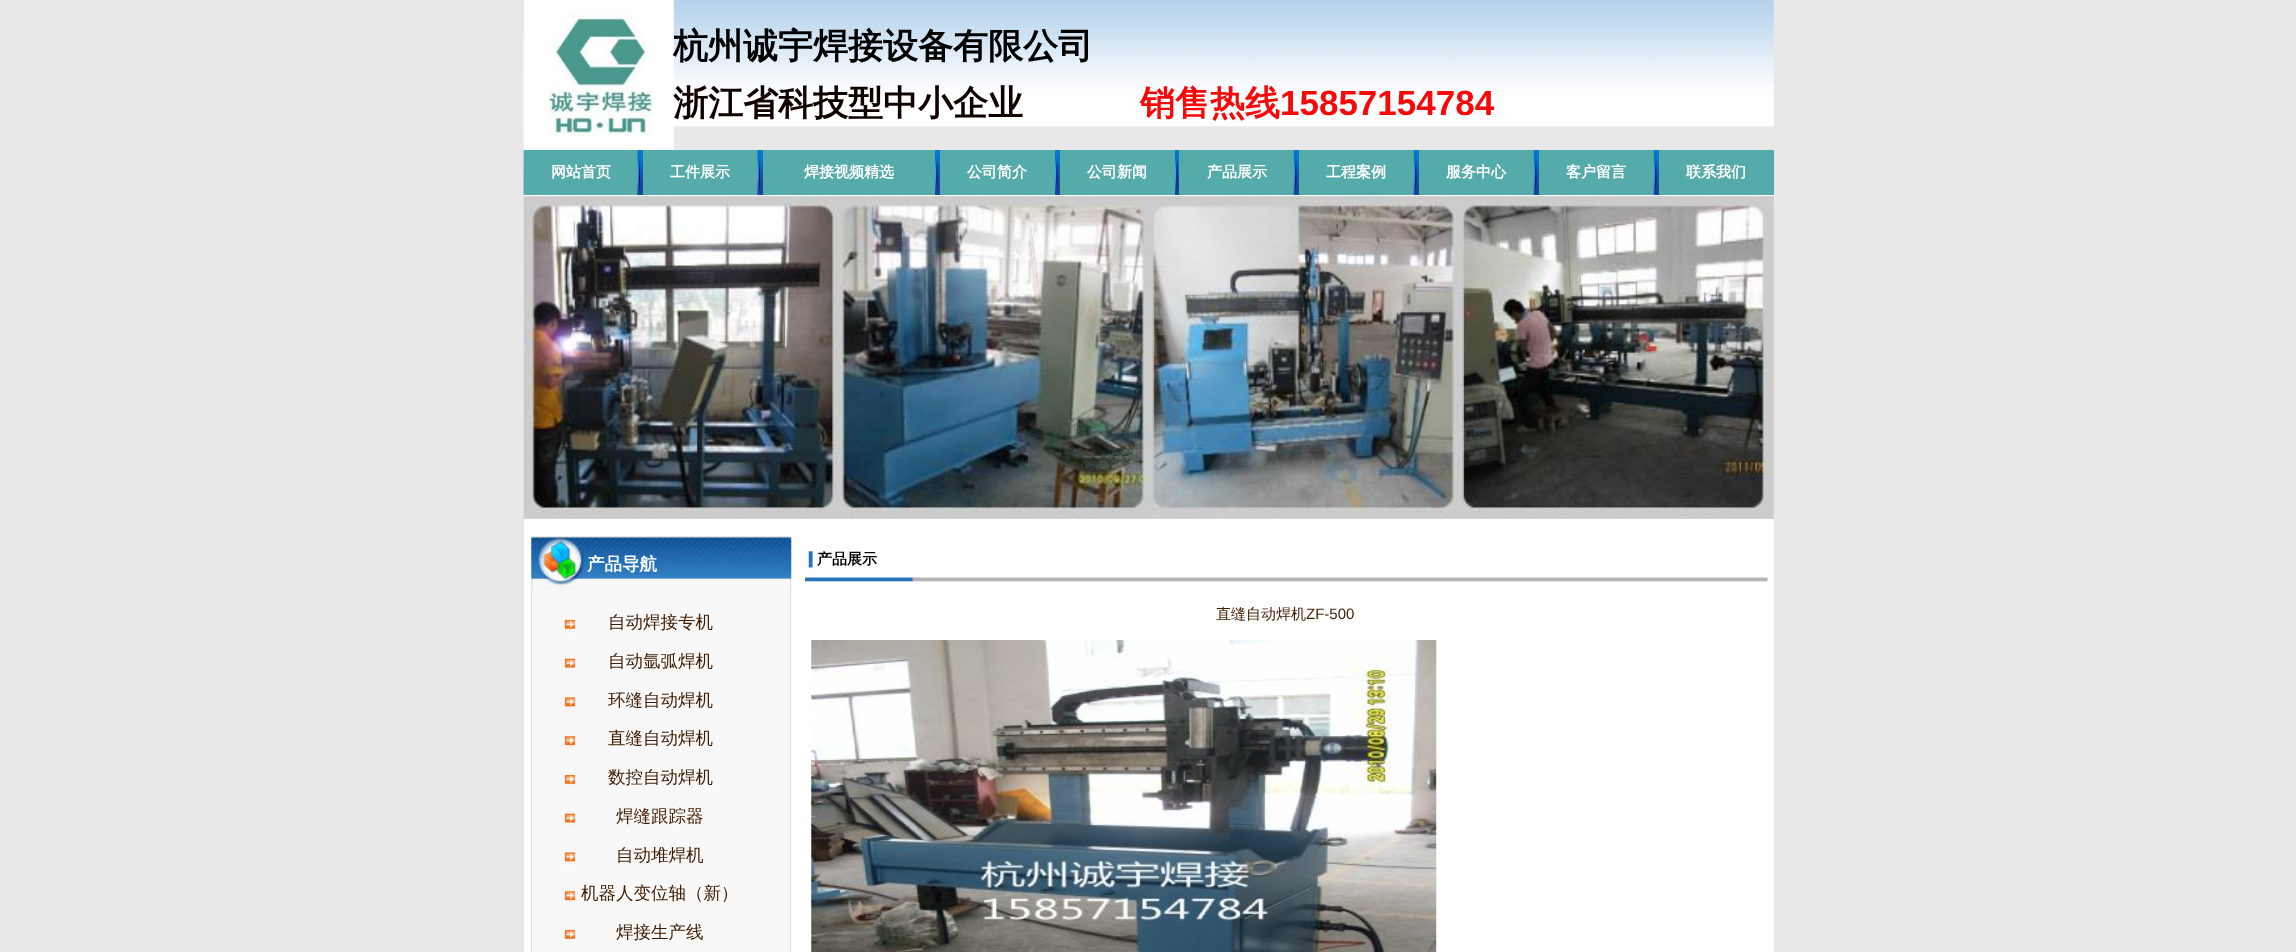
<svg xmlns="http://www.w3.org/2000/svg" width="2296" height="952">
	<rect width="100%" height="100%" fill="#E8E8E8" />
	<image x="523" y="0" width="1251" height="127" href="assets/img1.png" />
	<image x="523" y="0" width="151" height="150" href="assets/img2.png" />
	<text x="673" y="58" font-family="WenQuanYi Zen Hei" font-size="35" font-weight="700" fill="#000000">杭州诚宇焊接设备有限公司</text>
	<text x="673" y="115" font-family="WenQuanYi Zen Hei" font-size="35" font-weight="700" fill="#100101">浙江省科技型中小企业</text>
	<text x="1140" y="115" font-family="WenQuanYi Zen Hei" font-size="35" font-weight="700" fill="#F70909">销售热线</text>
	<text x="1280" y="115" font-family="Liberation Sans" font-size="35" font-weight="700" fill="#F70909">15857154784</text>
	<image x="523" y="150" width="1136" height="45" href="assets/img3.png" />
	<rect x="524" y="150" width="114" height="45" fill="#55AAAA" />
	<text x="551" y="177" font-family="WenQuanYi Zen Hei" font-size="15" font-weight="700" fill="#FFFFFF">网站首页</text>
	<image x="637" y="150" width="3" height="45" href="assets/img4.png" />
	<rect x="643" y="150" width="115" height="45" fill="#55AAAA" />
	<text x="670" y="177" font-family="WenQuanYi Zen Hei" font-size="15" font-weight="700" fill="#FFFFFF">工件展示</text>
	<image x="757" y="150" width="3" height="45" href="assets/img4.png" />
	<rect x="763" y="150" width="172" height="45" fill="#55AAAA" />
	<text x="804" y="177" font-family="WenQuanYi Zen Hei" font-size="15" font-weight="700" fill="#FFFFFF">焊接视频精选</text>
	<image x="935" y="158" width="3" height="34" href="assets/img5.png" />
	<rect x="940" y="150" width="115" height="45" fill="#55AAAA" />
	<text x="967" y="177" font-family="WenQuanYi Zen Hei" font-size="15" font-weight="700" fill="#FFFFFF">公司简介</text>
	<image x="1055" y="158" width="3" height="34" href="assets/img5.png" />
	<rect x="1060" y="150" width="115" height="45" fill="#55AAAA" />
	<text x="1087" y="177" font-family="WenQuanYi Zen Hei" font-size="15" font-weight="700" fill="#FFFFFF">公司新闻</text>
	<image x="1175" y="158" width="3" height="34" href="assets/img5.png" />
	<rect x="1179" y="150" width="115" height="45" fill="#55AAAA" />
	<text x="1207" y="177" font-family="WenQuanYi Zen Hei" font-size="15" font-weight="700" fill="#FFFFFF">产品展示</text>
	<image x="1293" y="150" width="4" height="45" href="assets/img6.png" />
	<rect x="1299" y="150" width="115" height="45" fill="#55AAAA" />
	<text x="1326" y="177" font-family="WenQuanYi Zen Hei" font-size="15" font-weight="700" fill="#FFFFFF">工程案例</text>
	<image x="1413" y="150" width="4" height="45" href="assets/img6.png" />
	<rect x="1419" y="150" width="115" height="45" fill="#55AAAA" />
	<text x="1446" y="177" font-family="WenQuanYi Zen Hei" font-size="15" font-weight="700" fill="#FFFFFF">服务中心</text>
	<image x="1533" y="150" width="4" height="45" href="assets/img6.png" />
	<rect x="1539" y="150" width="115" height="45" fill="#55AAAA" />
	<text x="1566" y="177" font-family="WenQuanYi Zen Hei" font-size="15" font-weight="700" fill="#FFFFFF">客户留言</text>
	<image x="1653" y="150" width="4" height="45" href="assets/img6.png" />
	<rect x="1659" y="150" width="115" height="45" fill="#55AAAA" />
	<text x="1686" y="177" font-family="WenQuanYi Zen Hei" font-size="15" font-weight="700" fill="#FFFFFF">联系我们</text>
	<rect x="524" y="195" width="1250" height="1" fill="#FFFFFF" />
	<image x="523" y="196" width="1251" height="323" href="assets/img7.png" />
	<rect x="524" y="519" width="1250" height="433" fill="#FFFFFF" />
	<image x="531" y="536" width="261" height="56" href="assets/img8.png" />
	<text x="587" y="570" font-family="WenQuanYi Zen Hei" font-size="17.5" font-weight="700" fill="#FFFFFF">产品导航</text>
	<rect x="532" y="591" width="258" height="361" fill="#F8F8F8" />
	<rect x="790" y="591" width="1" height="361" fill="#DDDDDD" />
	<rect x="531" y="591" width="1" height="361" fill="#DDDDDD" />
	<image x="564" y="614" width="12" height="20" href="assets/img9.png" />
	<text x="608" y="628" font-family="WenQuanYi Zen Hei" font-size="17.5" font-weight="500" fill="#401C00">自动焊接专机</text>
	<image x="564" y="652" width="12" height="21" href="assets/img10.png" />
	<text x="608" y="667" font-family="WenQuanYi Zen Hei" font-size="17.5" font-weight="500" fill="#401C00">自动氩弧焊机</text>
	<image x="564" y="691" width="12" height="21" href="assets/img11.png" />
	<text x="608" y="706" font-family="WenQuanYi Zen Hei" font-size="17.5" font-weight="500" fill="#401C00">环缝自动焊机</text>
	<image x="564" y="730" width="12" height="20" href="assets/img12.png" />
	<text x="608" y="744" font-family="WenQuanYi Zen Hei" font-size="17.5" font-weight="500" fill="#401C00">直缝自动焊机</text>
	<image x="564" y="769" width="12" height="20" href="assets/img9.png" />
	<text x="608" y="783" font-family="WenQuanYi Zen Hei" font-size="17.5" font-weight="500" fill="#401C00">数控自动焊机</text>
	<image x="564" y="807" width="12" height="21" href="assets/img10.png" />
	<text x="616" y="822" font-family="WenQuanYi Zen Hei" font-size="17.5" font-weight="500" fill="#401C00">焊缝跟踪器</text>
	<image x="564" y="846" width="12" height="21" href="assets/img11.png" />
	<text x="616" y="861" font-family="WenQuanYi Zen Hei" font-size="17.5" font-weight="500" fill="#401C00">自动堆焊机</text>
	<image x="564" y="885" width="12" height="20" href="assets/img12.png" />
	<text x="581" y="899" font-family="WenQuanYi Zen Hei" font-size="17.5" font-weight="500" fill="#401C00">机器人变位轴（新）</text>
	<image x="564" y="924" width="12" height="20" href="assets/img9.png" />
	<text x="616" y="938" font-family="WenQuanYi Zen Hei" font-size="17.5" font-weight="500" fill="#401C00">焊接生产线</text>
	<image x="805" y="551" width="963" height="31" href="assets/img13.png" />
	<text x="817" y="564" font-family="WenQuanYi Zen Hei" font-size="15" font-weight="700" fill="#000000">产品展示</text>
	<text x="1216" y="619" font-family="WenQuanYi Zen Hei" font-size="15" font-weight="500" fill="#401C00">直缝自动焊机</text>
	<text x="1306" y="619" font-family="Liberation Sans" font-size="15" fill="#401C00">ZF-500</text>
	<image x="811" y="640" width="626" height="312" href="assets/img14.png" />
</svg>
